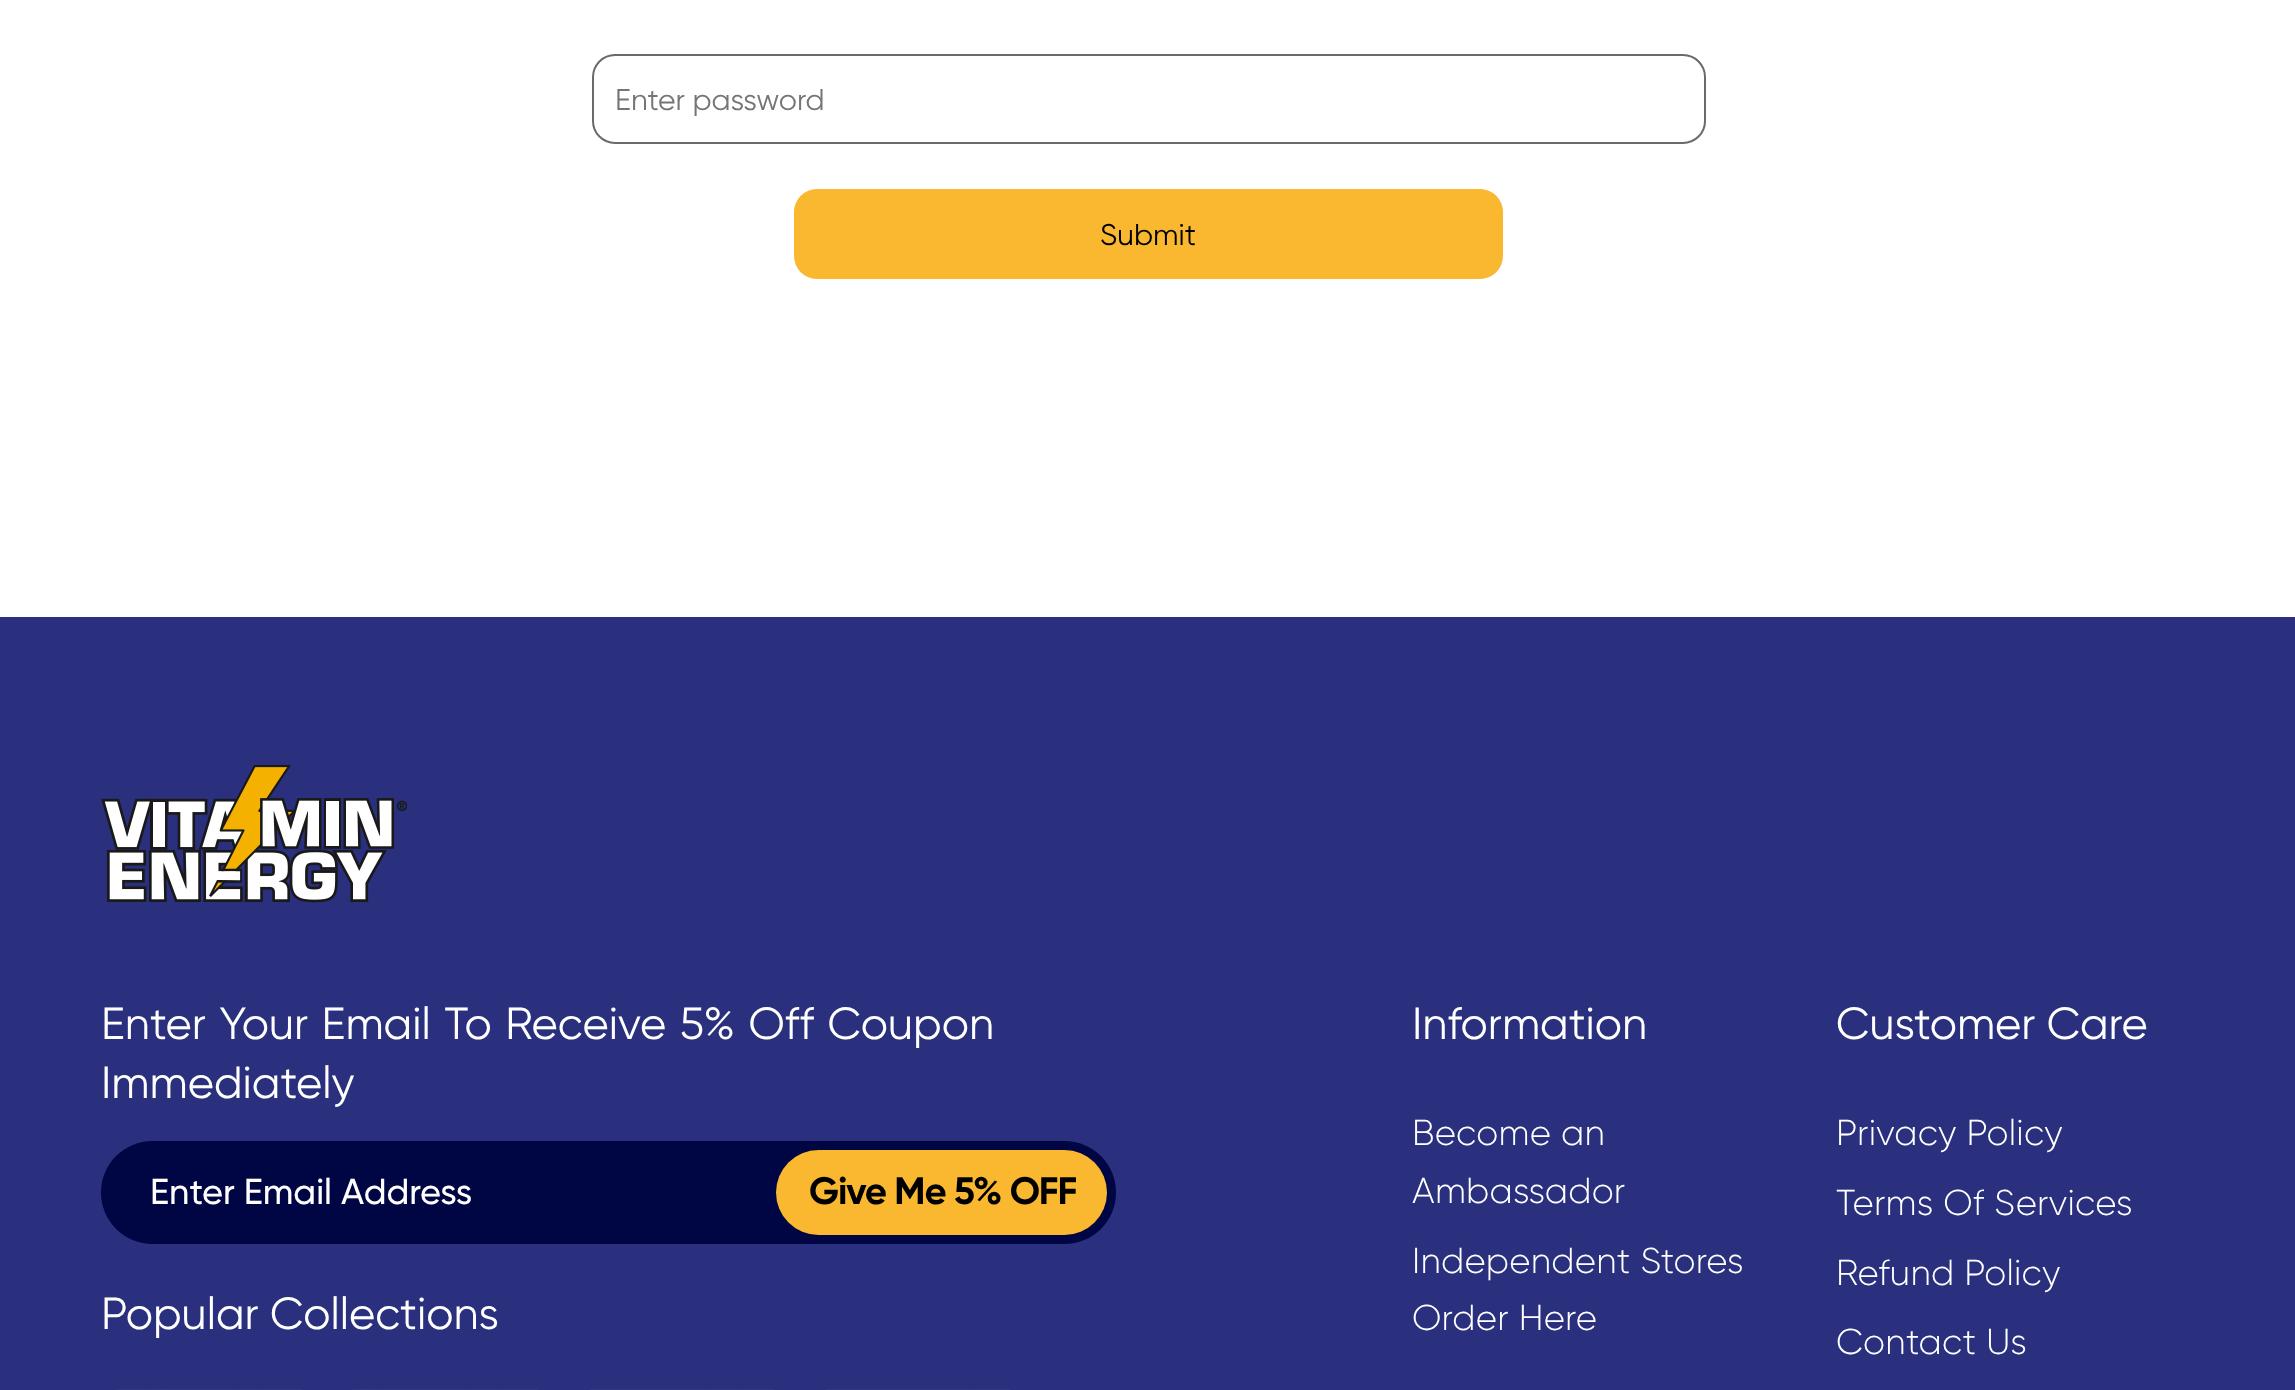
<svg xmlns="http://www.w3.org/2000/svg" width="2295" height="1390">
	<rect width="100%" height="100%" fill="#FFFFFF" />
	<rect x="593" y="55" width="1112" height="88" rx="22" fill="none" stroke="#6A6A6A" stroke-width="2" />
	<text x="615" y="110" font-family="Gilroy" font-size="30" fill="#757575">Enter password</text>
	<rect x="794" y="189" width="709" height="90" rx="23" fill="#F9B830" />
	<text x="1100" y="245" font-family="Gilroy" font-size="30" fill="#000000">Submit</text>
	<rect x="0" y="617" width="2295" height="773" fill="#2A307D" />
	<image x="101" y="765" width="306" height="138" href="assets/img1.png" />
	<g font-family="Gilroy" font-size="45" fill="#FFFFFF">
		<text x="101" y="1039" word-spacing="2.25">Enter Your Email To Receive 5% Off Coupon</text>
		<text x="101" y="1098">Immediately</text>
	</g>
	<rect x="101" y="1141" width="1015" height="103" rx="51.5" fill="#000544" />
	<text x="150" y="1204" font-family="Gilroy" font-size="36" font-weight="500" fill="#FFFFFF">Enter Email Address</text>
	<rect x="776" y="1150" width="331" height="85" rx="42.5" fill="#F9B830" />
	<text x="809" y="1204" font-family="Gilroy" font-size="38.25" font-weight="700" letter-spacing="-1.1" fill="#000000">Give Me 5% OFF</text>
	<text x="101" y="1329" font-family="Gilroy" font-size="45" fill="#FFFFFF">Popular Collections</text>
	<image x="116" y="1389" width="186" height="1" href="assets/img2.png" />
	<image x="352" y="1389" width="187" height="1" href="assets/img3.png" />
	<image x="589" y="1389" width="186" height="1" href="assets/img4.png" />
	<image x="825" y="1389" width="186" height="1" href="assets/img5.png" />
	<text x="1412" y="1039" font-family="Gilroy" font-size="45" fill="#FFFFFF">Information</text>
	<g font-family="Gilroy" font-size="36" font-weight="300" letter-spacing="0.25" fill="#FFFFFF">
		<text x="1412" y="1145">Become an</text>
		<text x="1412" y="1203">Ambassador</text>
		<text x="1412" y="1273">Independent Stores</text>
		<text x="1412" y="1330">Order Here</text>
	</g>
	<text x="1836" y="1039" font-family="Gilroy" font-size="45" fill="#FFFFFF">Customer Care</text>
	<g font-family="Gilroy" font-size="36" font-weight="300" letter-spacing="0.25" fill="#FFFFFF">
		<text x="1836" y="1145">Privacy Policy</text>
		<text x="1836" y="1215">Terms Of Services</text>
		<text x="1836" y="1285">Refund Policy</text>
		<text x="1836" y="1354">Contact Us</text>
	</g>
</svg>
